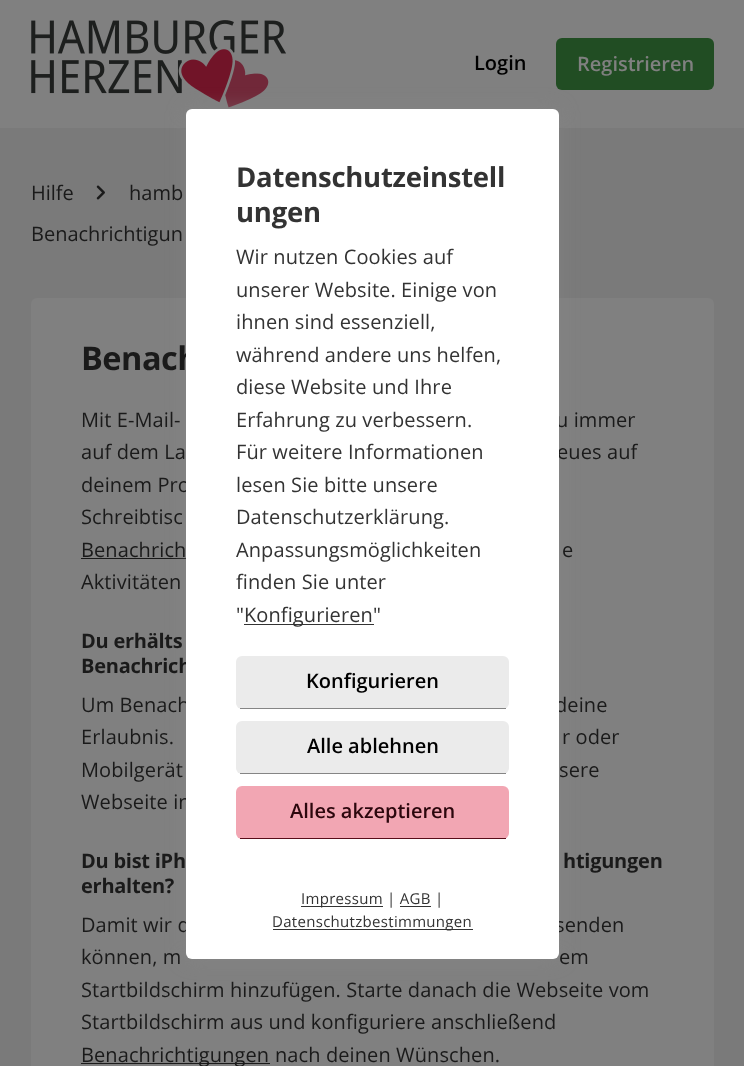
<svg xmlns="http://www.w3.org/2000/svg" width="744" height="1066">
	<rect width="100%" height="100%" fill="#7A7A7A" />
	<rect x="0" y="0" width="744" height="128" fill="#808080" />
	<image x="31" y="20" width="255" height="88" href="assets/img1.png" />
	<text x="474" y="70" font-family="Open Sans" font-size="20" font-weight="600" fill="#000000">Login</text>
	<rect x="556" y="38" width="158" height="52" rx="6" fill="#214D23" />
	<text x="577" y="71" font-family="Open Sans" font-size="20" font-weight="600" fill="#808080">Registrieren</text>
	<rect x="31" y="298" width="683" height="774" rx="6" fill="#808080" />
	<rect x="81" y="558" width="105" height="1" fill="#1A1A1A" />
	<rect x="186" y="109" width="373" height="850" rx="6" fill="#888888" fill-opacity="0.5" filter="blur(9.5px)" />
	<text x="81" y="370" font-family="Open Sans" font-size="32.5" font-weight="700" letter-spacing="-0.5" fill="#1A1A1A">Benach</text>
	<g font-family="Open Sans" font-size="20" letter-spacing="0.1" fill="#1A1A1A">
		<text x="556" y="427">u immer</text>
		<text x="557" y="459">eues auf</text>
		<text x="81" y="492">deinem Pro</text>
	</g>
	<text x="81" y="673" font-family="Open Sans" font-size="20" font-weight="700" letter-spacing="-0.25" fill="#1A1A1A">Benachrich</text>
	<g font-family="Open Sans" font-size="20" letter-spacing="0.1" fill="#1A1A1A">
		<text x="81" y="712">Um Benach</text>
		<text x="555" y="712">deine</text>
		<text x="81" y="809">Webseite in</text>
		<text x="81" y="932">Damit wir d</text>
		<text x="555" y="932">senden</text>
	</g>
	<rect x="186" y="109" width="373" height="850" rx="6" fill="#FFFFFF" />
	<g font-family="Open Sans" font-size="27.5" font-weight="700" letter-spacing="-0.25" fill="#333333">
		<text x="236" y="187">Datenschutzeinstell</text>
		<text x="236" y="222">ungen</text>
	</g>
	<g font-family="Open Sans" font-size="20" letter-spacing="0.1" fill="#333333">
		<text x="236" y="264">Wir nutzen Cookies auf</text>
		<text x="236" y="297">unserer Website. Einige von</text>
		<text x="236" y="329">ihnen sind essenziell,</text>
		<text x="236" y="362">während andere uns helfen,</text>
		<text x="236" y="394">diese Website und Ihre</text>
		<text x="236" y="427">Erfahrung zu verbessern.</text>
		<text x="236" y="459">Für weitere Informationen</text>
		<text x="236" y="492">lesen Sie bitte unsere</text>
		<text x="236" y="524">Datenschutzerklärung.</text>
		<text x="236" y="557">Anpassungsmöglichkeiten</text>
		<text x="236" y="589">finden Sie unter</text>
		<text x="236" y="622">"</text>
	</g>
	<rect x="244" y="624" width="130" height="1" fill="#333333" />
	<g font-family="Open Sans" font-size="20" letter-spacing="0.1" fill="#333333">
		<text x="244" y="622">Konfigurieren</text>
		<text x="373" y="622">"</text>
	</g>
	<rect x="236" y="656" width="273" height="53" rx="6" fill="#EBEBEB" />
	<rect x="240" y="708" width="266" height="1" fill="#858585" />
	<text x="306" y="688" font-family="Open Sans" font-size="20" font-weight="600" fill="#000000">Konfigurieren</text>
	<rect x="236" y="721" width="273" height="53" rx="6" fill="#EBEBEB" />
	<rect x="240" y="773" width="266" height="1" fill="#858585" />
	<text x="307" y="753" font-family="Open Sans" font-size="20" font-weight="600" fill="#000000">Alle ablehnen</text>
	<rect x="236" y="786" width="273" height="53" rx="6" fill="#F2A6B3" />
	<rect x="240" y="838" width="266" height="1" fill="#590D1A" />
	<text x="290" y="818" font-family="Open Sans" font-size="20" font-weight="600" fill="#2C070D">Alles akzeptieren</text>
	<rect x="301" y="906" width="82" height="1" fill="#333333" />
	<g font-family="Open Sans" font-size="15" letter-spacing="0.3" fill="#333333">
		<text x="301" y="904">Impressum</text>
		<text x="387" y="904">| AGB</text>
		<text x="435" y="904">|</text>
	</g>
	<rect x="400" y="906" width="31" height="1" fill="#333333" />
	<rect x="273" y="929" width="200" height="1" fill="#333333" />
	<text x="272" y="927" font-family="Open Sans" font-size="15" letter-spacing="0.3" fill="#333333">Datenschutzbestimmungen</text>
	<text x="31" y="200" font-family="Open Sans" font-size="20" fill="#1A1A1A">Hilfe</text>
	<image x="96" y="185" width="9" height="15" href="assets/img2.png" />
	<g font-family="Open Sans" font-size="20" fill="#1A1A1A">
		<text x="129" y="200">hamb</text>
		<text x="31" y="241">Benachrichtigun</text>
	</g>
	<g font-family="Open Sans" font-size="20" letter-spacing="0.1" fill="#1A1A1A">
		<text x="81" y="427">Mit E-Mail-</text>
		<text x="81" y="459">auf dem La</text>
		<text x="81" y="524">Schreibtisc</text>
		<text x="81" y="557">Benachrich</text>
		<text x="562" y="557">e</text>
		<text x="81" y="589">Aktivitäten</text>
	</g>
	<text x="81" y="648" font-family="Open Sans" font-size="20" font-weight="700" letter-spacing="-0.25" fill="#1A1A1A">Du erhälts</text>
	<g font-family="Open Sans" font-size="20" letter-spacing="0.1" fill="#1A1A1A">
		<text x="81" y="744">Erlaubnis.</text>
		<text x="562" y="744">r oder</text>
		<text x="81" y="777">Mobilgerät</text>
		<text x="559" y="777">sere</text>
	</g>
	<g font-family="Open Sans" font-size="20" font-weight="700" letter-spacing="-0.25" fill="#1A1A1A">
		<text x="81" y="868">Du bist iPh</text>
		<text x="563" y="868">htigungen</text>
		<text x="81" y="893">erhalten?</text>
	</g>
	<g font-family="Open Sans" font-size="20" letter-spacing="0.1" fill="#1A1A1A">
		<text x="81" y="964">können, m</text>
		<text x="559" y="964">em</text>
		<text x="81" y="997">Startbildschirm hinzufügen. Starte danach die Webseite vom</text>
		<text x="81" y="1029">Startbildschirm aus und konfiguriere anschließend</text>
	</g>
	<rect x="81" y="1063" width="189" height="1" fill="#1A1A1A" />
	<g font-family="Open Sans" font-size="20" letter-spacing="0.1" fill="#1A1A1A">
		<text x="81" y="1062">Benachrichtigungen</text>
		<text x="275" y="1062">nach deinen Wünschen.</text>
	</g>
</svg>
